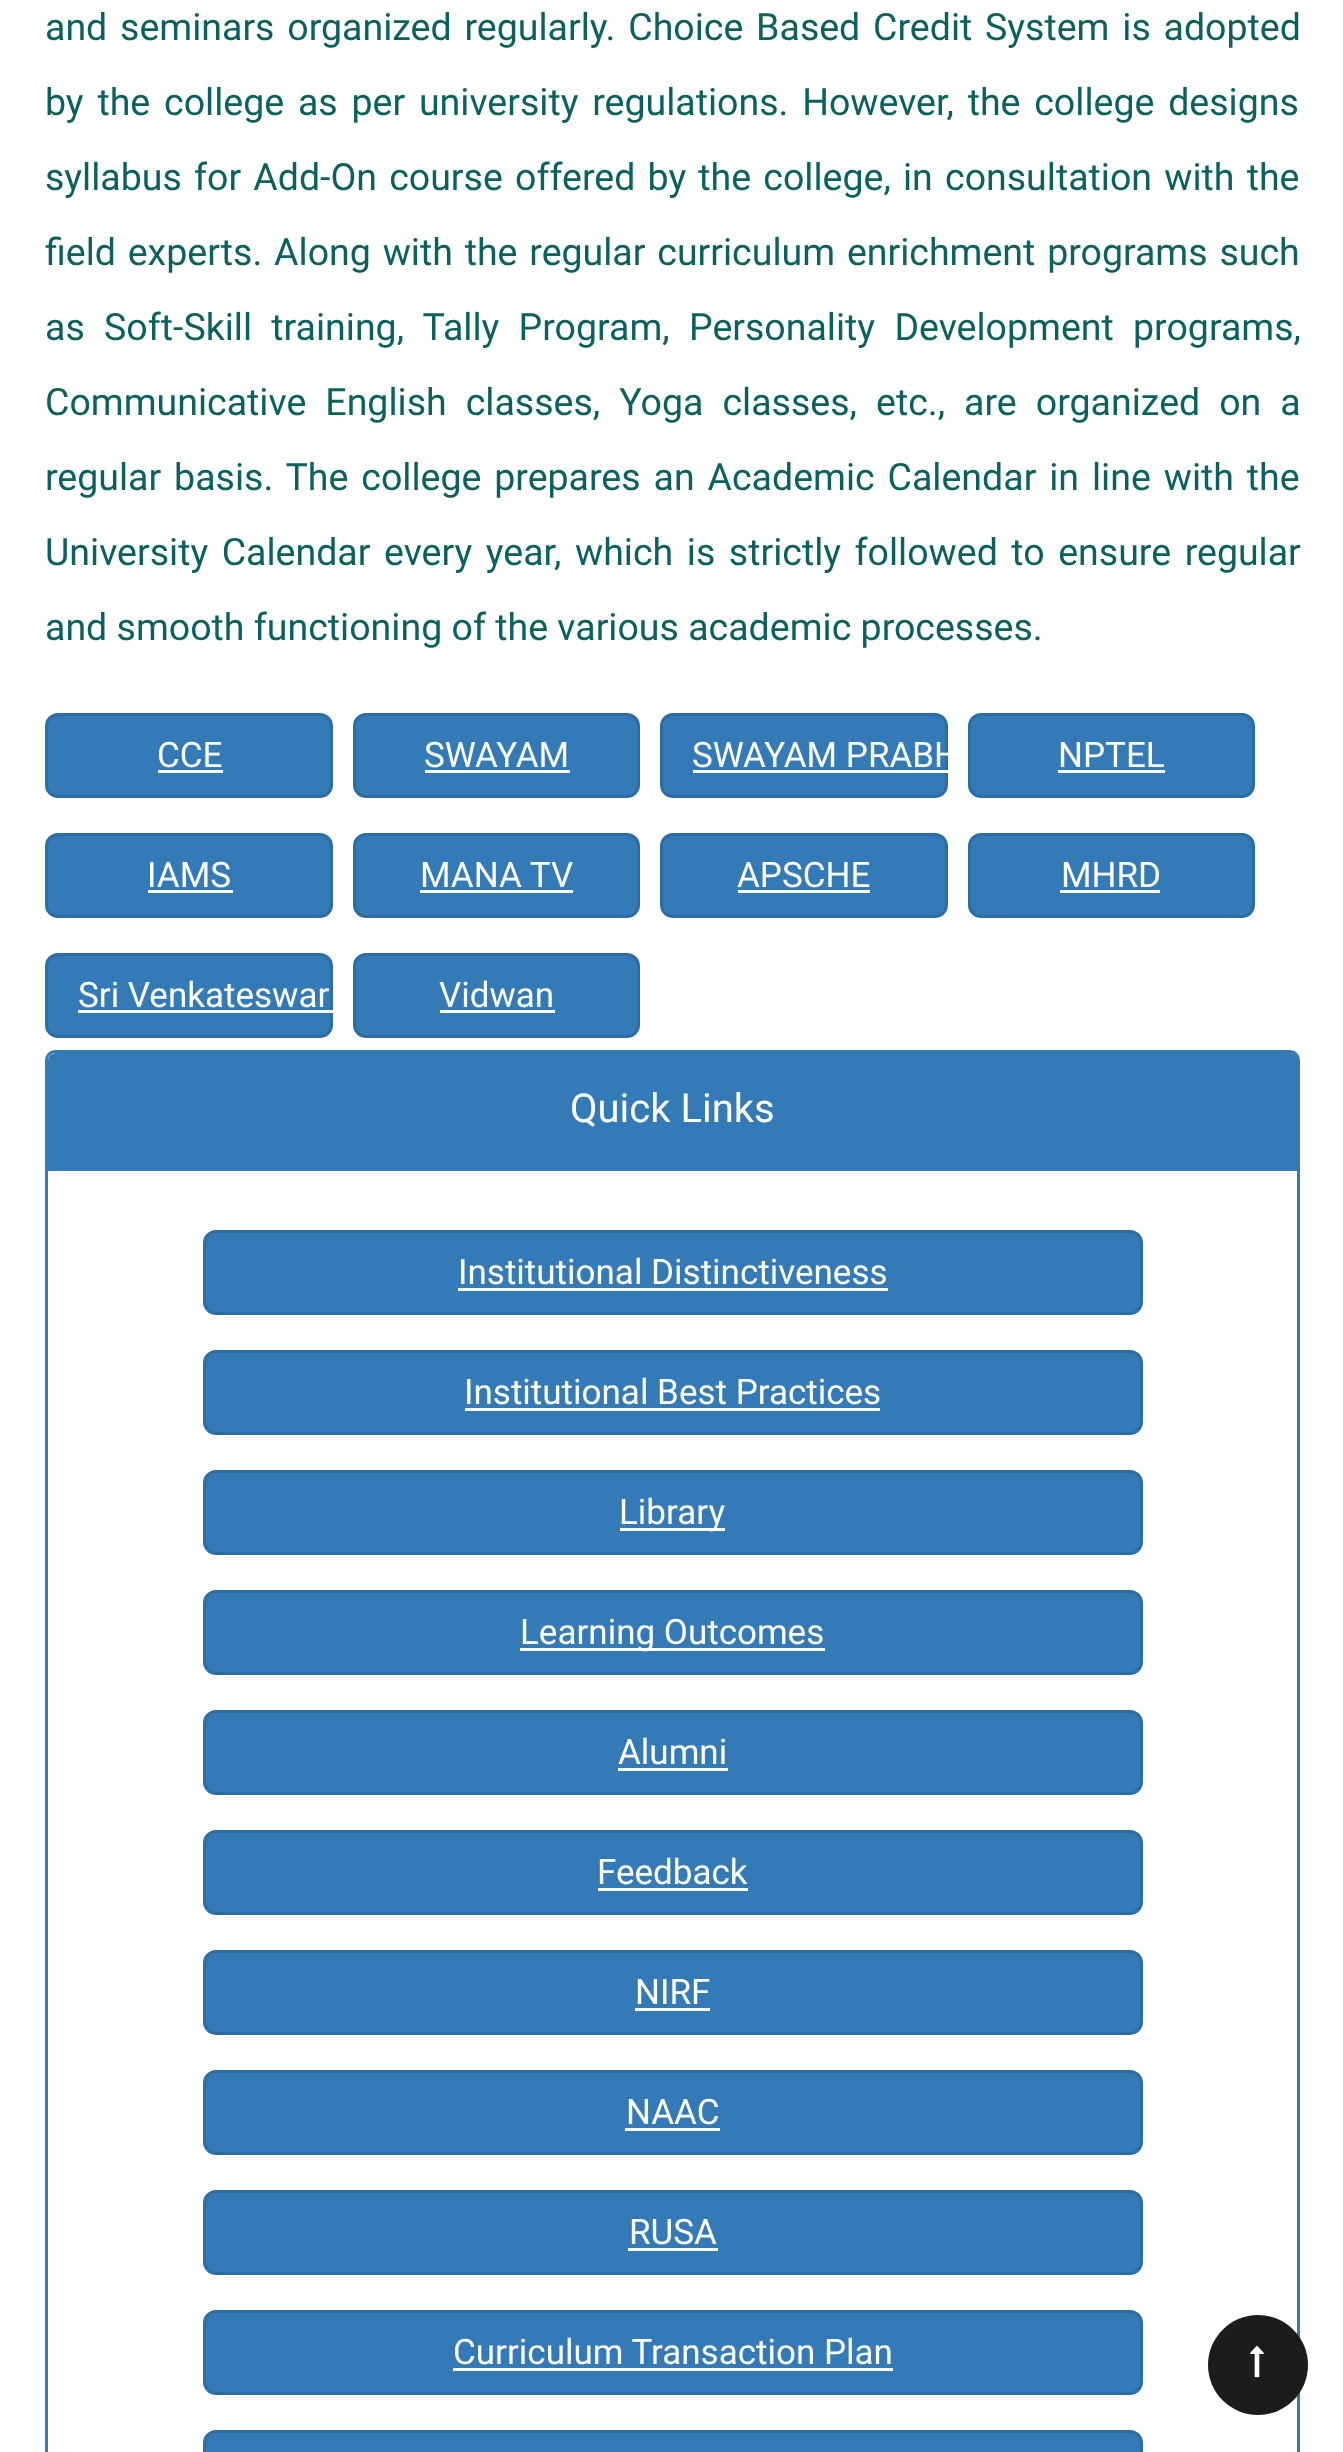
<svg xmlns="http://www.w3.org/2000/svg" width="1343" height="2452">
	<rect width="100%" height="100%" fill="#FFFFFF" />
	<g font-family="Roboto" font-size="37.5" fill="#0B615E">
		<text x="45" y="40" word-spacing="3.5">and seminars organized regularly. Choice Based Credit System is adopted</text>
		<text x="45" y="115" word-spacing="4.5">by the college as per university regulations. However, the college designs</text>
		<text x="45" y="190" word-spacing="2.9">syllabus for Add-On course offered by the college, in consultation with the</text>
		<text x="45" y="265" word-spacing="2.5">field experts. Along with the regular curriculum enrichment programs such</text>
		<text x="45" y="340" word-spacing="10">as Soft-Skill training, Tally Program, Personality Development programs,</text>
		<text x="45" y="415" word-spacing="9.75">Communicative English classes, Yoga classes, etc., are organized on a</text>
		<text x="45" y="490" word-spacing="3.6">regular basis. The college prepares an Academic Calendar in line with the</text>
		<text x="45" y="565" word-spacing="4.25">University Calendar every year, which is strictly followed to ensure regular</text>
		<text x="45" y="640">and smooth functioning of the various academic processes.</text>
	</g>
	<rect x="46.5" y="714.5" width="285" height="82" rx="11.5" fill="#337AB7" stroke="#2E6DA4" stroke-width="3" />
	<text x="157" y="767" font-family="Roboto" font-size="35" fill="#FFFFFF">CCE</text>
	<rect x="158" y="770" width="65" height="3" fill="#FFFFFF" />
	<rect x="354.5" y="714.5" width="284" height="82" rx="11.5" fill="#337AB7" stroke="#2E6DA4" stroke-width="3" />
	<text x="424" y="767" font-family="Roboto" font-size="35" fill="#FFFFFF">SWAYAM</text>
	<rect x="425" y="770" width="145" height="3" fill="#FFFFFF" />
	<rect x="661.5" y="714.5" width="285" height="82" rx="11.5" fill="#337AB7" stroke="#2E6DA4" stroke-width="3" />
	<text x="692" y="767" font-family="Roboto" font-size="35" fill="#FFFFFF">SWAYAM PRABH</text>
	<rect x="693" y="770" width="255" height="3" fill="#FFFFFF" />
	<rect x="969.5" y="714.5" width="284" height="82" rx="11.5" fill="#337AB7" stroke="#2E6DA4" stroke-width="3" />
	<text x="1058" y="767" font-family="Roboto" font-size="35" fill="#FFFFFF">NPTEL</text>
	<rect x="1058" y="770" width="107" height="3" fill="#FFFFFF" />
	<rect x="46.5" y="834.5" width="285" height="82" rx="11.5" fill="#337AB7" stroke="#2E6DA4" stroke-width="3" />
	<text x="147" y="887" font-family="Roboto" font-size="35" fill="#FFFFFF">IAMS</text>
	<rect x="148" y="890" width="85" height="3" fill="#FFFFFF" />
	<rect x="354.5" y="834.5" width="284" height="82" rx="11.5" fill="#337AB7" stroke="#2E6DA4" stroke-width="3" />
	<text x="420" y="887" font-family="Roboto" font-size="35" fill="#FFFFFF">MANA TV</text>
	<rect x="420" y="890" width="153" height="3" fill="#FFFFFF" />
	<rect x="661.5" y="834.5" width="285" height="82" rx="11.5" fill="#337AB7" stroke="#2E6DA4" stroke-width="3" />
	<text x="737" y="887" font-family="Roboto" font-size="35" fill="#FFFFFF">APSCHE</text>
	<rect x="738" y="890" width="132" height="3" fill="#FFFFFF" />
	<rect x="969.5" y="834.5" width="284" height="82" rx="11.5" fill="#337AB7" stroke="#2E6DA4" stroke-width="3" />
	<text x="1061" y="887" font-family="Roboto" font-size="35" fill="#FFFFFF">MHRD</text>
	<rect x="1060" y="890" width="100" height="3" fill="#FFFFFF" />
	<rect x="46.5" y="954.5" width="285" height="82" rx="11.5" fill="#337AB7" stroke="#2E6DA4" stroke-width="3" />
	<text x="78" y="1007" font-family="Roboto" font-size="35" fill="#FFFFFF">Sri Venkateswar</text>
	<rect x="78" y="1010" width="255" height="3" fill="#FFFFFF" />
	<rect x="354.5" y="954.5" width="284" height="82" rx="11.5" fill="#337AB7" stroke="#2E6DA4" stroke-width="3" />
	<text x="439" y="1007" font-family="Roboto" font-size="35" fill="#FFFFFF">Vidwan</text>
	<rect x="440" y="1010" width="115" height="3" fill="#FFFFFF" />
	<rect x="46.5" y="1051.5" width="1252" height="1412" rx="8.5" fill="none" stroke="#337AB7" stroke-width="3" />
	<path d="M56 1053H1290C1294.5 1053 1298 1056.5 1298 1061V1170H48V1061C48 1056.5 51.5 1053 56 1053Z" fill="#337AB7" />
	<rect x="48" y="1170" width="1250" height="1" fill="#337AB7" />
	<text x="570" y="1122" font-family="Roboto" font-size="40" fill="#FFFFFF">Quick Links</text>
	<rect x="204.5" y="1231.5" width="937" height="82" rx="11.5" fill="#337AB7" stroke="#2E6DA4" stroke-width="3" />
	<text x="458" y="1284" font-family="Roboto" font-size="35" fill="#FFFFFF">Institutional Distinctiveness</text>
	<rect x="458" y="1288" width="430" height="3" fill="#FFFFFF" />
	<rect x="204.5" y="1351.5" width="937" height="82" rx="11.5" fill="#337AB7" stroke="#2E6DA4" stroke-width="3" />
	<text x="464" y="1404" font-family="Roboto" font-size="35" fill="#FFFFFF">Institutional Best Practices</text>
	<rect x="465" y="1408" width="415" height="3" fill="#FFFFFF" />
	<rect x="204.5" y="1471.5" width="937" height="82" rx="11.5" fill="#337AB7" stroke="#2E6DA4" stroke-width="3" />
	<rect x="620" y="1528" width="105" height="3" fill="#FFFFFF" />
	<text x="619" y="1524" font-family="Roboto" font-size="35" fill="#FFFFFF">Library</text>
	<rect x="204.5" y="1591.5" width="937" height="82" rx="11.5" fill="#337AB7" stroke="#2E6DA4" stroke-width="3" />
	<rect x="520" y="1648" width="305" height="3" fill="#FFFFFF" />
	<text x="520" y="1644" font-family="Roboto" font-size="35" fill="#FFFFFF">Learning Outcomes</text>
	<rect x="204.5" y="1711.5" width="937" height="82" rx="11.5" fill="#337AB7" stroke="#2E6DA4" stroke-width="3" />
	<text x="618" y="1764" font-family="Roboto" font-size="35" fill="#FFFFFF">Alumni</text>
	<rect x="618" y="1768" width="110" height="3" fill="#FFFFFF" />
	<rect x="204.5" y="1831.5" width="937" height="82" rx="11.5" fill="#337AB7" stroke="#2E6DA4" stroke-width="3" />
	<text x="597" y="1884" font-family="Roboto" font-size="35" fill="#FFFFFF">Feedback</text>
	<rect x="598" y="1888" width="150" height="3" fill="#FFFFFF" />
	<rect x="204.5" y="1951.5" width="937" height="82" rx="11.5" fill="#337AB7" stroke="#2E6DA4" stroke-width="3" />
	<text x="635" y="2004" font-family="Roboto" font-size="35" fill="#FFFFFF">NIRF</text>
	<rect x="635" y="2008" width="75" height="3" fill="#FFFFFF" />
	<rect x="204.5" y="2071.5" width="937" height="82" rx="11.5" fill="#337AB7" stroke="#2E6DA4" stroke-width="3" />
	<text x="626" y="2124" font-family="Roboto" font-size="35" fill="#FFFFFF">NAAC</text>
	<rect x="625" y="2128" width="95" height="3" fill="#FFFFFF" />
	<rect x="204.5" y="2191.5" width="937" height="82" rx="11.5" fill="#337AB7" stroke="#2E6DA4" stroke-width="3" />
	<text x="629" y="2244" font-family="Roboto" font-size="35" fill="#FFFFFF">RUSA</text>
	<rect x="628" y="2248" width="90" height="3" fill="#FFFFFF" />
	<rect x="204.5" y="2311.5" width="937" height="82" rx="11.5" fill="#337AB7" stroke="#2E6DA4" stroke-width="3" />
	<text x="453" y="2364" font-family="Roboto" font-size="35" fill="#FFFFFF">Curriculum Transaction Plan</text>
	<rect x="453" y="2368" width="440" height="3" fill="#FFFFFF" />
	<rect x="204.5" y="2431.5" width="937" height="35" rx="11.5" fill="#337AB7" stroke="#2E6DA4" stroke-width="3" />
	<circle cx="1258" cy="2365" r="50" fill="#1C1C1C" />
	<image x="1250" y="2345" width="14" height="33" href="assets/img1.png" />
</svg>
